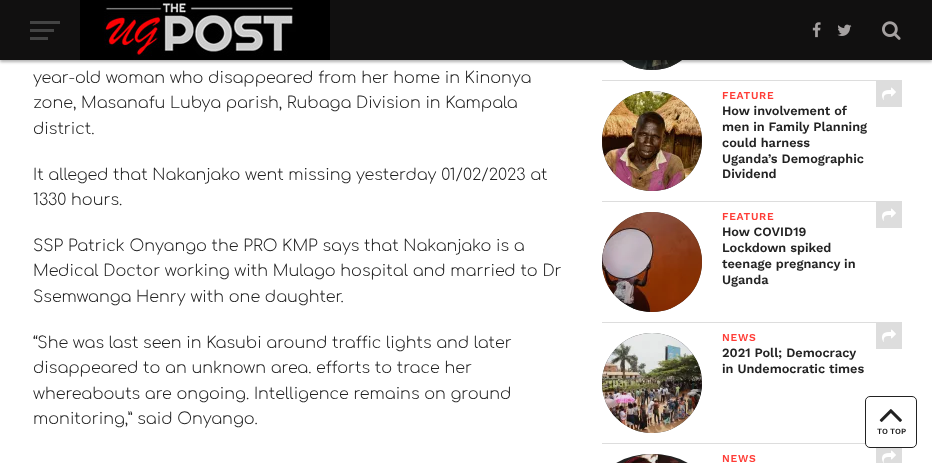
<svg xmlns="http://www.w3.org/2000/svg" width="932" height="463">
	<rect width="100%" height="100%" fill="#FFFFFF" />
	<circle cx="652" cy="20" r="50" fill="#222222" />
	<image x="622" y="60" width="60" height="10" href="assets/img5.png" />
	<rect x="0" y="2" width="932" height="60" fill="#000000" fill-opacity="0.3" filter="blur(1.5px)" />
	<rect x="0" y="0" width="932" height="60" fill="#111010" />
	<rect x="30" y="21" width="30" height="3" fill="#444444" />
	<rect x="30" y="29" width="24" height="3" fill="#444444" />
	<rect x="30" y="37" width="18" height="3" fill="#444444" />
	<image x="80" y="0" width="250" height="60" href="assets/img1.png" />
	<image x="812" y="22" width="9" height="16" href="assets/img2.png" />
	<image x="837" y="24" width="15" height="12" href="assets/img3.png" />
	<image x="882" y="21" width="19" height="19" href="assets/img4.png" />
	<g font-family="Comfortaa" font-size="16" font-weight="300" fill="#222222">
		<text x="33" y="83">year-old woman who disappeared from her home in Kinonya</text>
		<text x="33" y="108">zone, Masanafu Lubya parish, Rubaga Division in Kampala</text>
		<text x="33" y="134">district.</text>
		<text x="33" y="180">It alleged that Nakanjako went missing yesterday 01/02/2023 at</text>
		<text x="33" y="205">1330 hours.</text>
		<text x="33" y="251">SSP Patrick Onyango the PRO KMP says that Nakanjako is a</text>
		<text x="33" y="276">Medical Doctor working with Mulago hospital and married to Dr</text>
		<text x="33" y="302">Ssemwanga Henry with one daughter.</text>
		<text x="33" y="348">“She was last seen in Kasubi around traffic lights and later</text>
		<text x="33" y="373">disappeared to an unknown area. efforts to trace her</text>
		<text x="33" y="399">whereabouts are ongoing. Intelligence remains on ground</text>
		<text x="33" y="424">monitoring,” said Onyango.</text>
	</g>
	<rect x="602" y="80" width="300" height="1" fill="#DDDDDD" />
	<circle cx="652" cy="141" r="50" fill="#222222" />
	<image x="602" y="91" width="100" height="100" href="assets/img6.png" />
	<text x="722" y="99" font-family="Work Sans" font-size="10.5" font-weight="600" letter-spacing="0.75" fill="#FF3C36">FEATURE</text>
	<g font-family="Work Sans" font-size="12.75" font-weight="600" fill="#222222">
		<text x="722" y="115">How involvement of</text>
		<text x="722" y="131">men in Family Planning</text>
		<text x="722" y="147">could harness</text>
		<text x="722" y="163">Uganda’s Demographic</text>
		<text x="722" y="178">Dividend</text>
	</g>
	<rect x="876" y="81" width="26" height="26" fill="#DDDDDD" />
	<image x="882" y="87" width="14" height="13" href="assets/img7.png" />
	<rect x="602" y="201" width="300" height="1" fill="#DDDDDD" />
	<circle cx="652" cy="262" r="50" fill="#222222" />
	<image x="602" y="212" width="100" height="100" href="assets/img8.png" />
	<text x="722" y="220" font-family="Work Sans" font-size="10.5" font-weight="600" letter-spacing="0.75" fill="#FF3C36">FEATURE</text>
	<g font-family="Work Sans" font-size="12.75" font-weight="600" fill="#222222">
		<text x="722" y="236">How COVID19</text>
		<text x="722" y="252">Lockdown spiked</text>
		<text x="722" y="268">teenage pregnancy in</text>
		<text x="722" y="284">Uganda</text>
	</g>
	<rect x="876" y="202" width="26" height="26" fill="#DDDDDD" />
	<image x="882" y="208" width="14" height="13" href="assets/img7.png" />
	<rect x="602" y="322" width="300" height="1" fill="#DDDDDD" />
	<circle cx="652" cy="383" r="50" fill="#222222" />
	<image x="602" y="333" width="100" height="100" href="assets/img9.png" />
	<text x="722" y="341" font-family="Work Sans" font-size="10.5" font-weight="600" letter-spacing="0.75" fill="#FF3C36">NEWS</text>
	<g font-family="Work Sans" font-size="12.75" font-weight="600" fill="#222222">
		<text x="722" y="357">2021 Poll; Democracy</text>
		<text x="722" y="373">in Undemocratic times</text>
	</g>
	<rect x="876" y="323" width="26" height="26" fill="#DDDDDD" />
	<image x="882" y="329" width="14" height="13" href="assets/img7.png" />
	<rect x="602" y="443" width="264" height="1" fill="#DDDDDD" />
	<rect x="602" y="454" width="100" height="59" rx="50" fill="#222222" />
	<image x="623" y="454" width="58" height="9" href="assets/img10.png" />
	<text x="722" y="462" font-family="Work Sans" font-size="10.5" font-weight="600" letter-spacing="0.75" fill="#FF3C36">NEWS</text>
	<rect x="876" y="448" width="26" height="15" fill="#DDDDDD" />
	<image x="882" y="450" width="14" height="13" href="assets/img7.png" />
	<rect x="865.5" y="396.5" width="51" height="51" rx="4.5" fill="#FFFFFF" stroke="#222222" />
	<image x="879" y="409" width="23" height="13" href="assets/img11.png" />
	<text x="877" y="434" font-family="Work Sans" font-size="8" font-weight="600" fill="#222222">TO TOP</text>
</svg>
